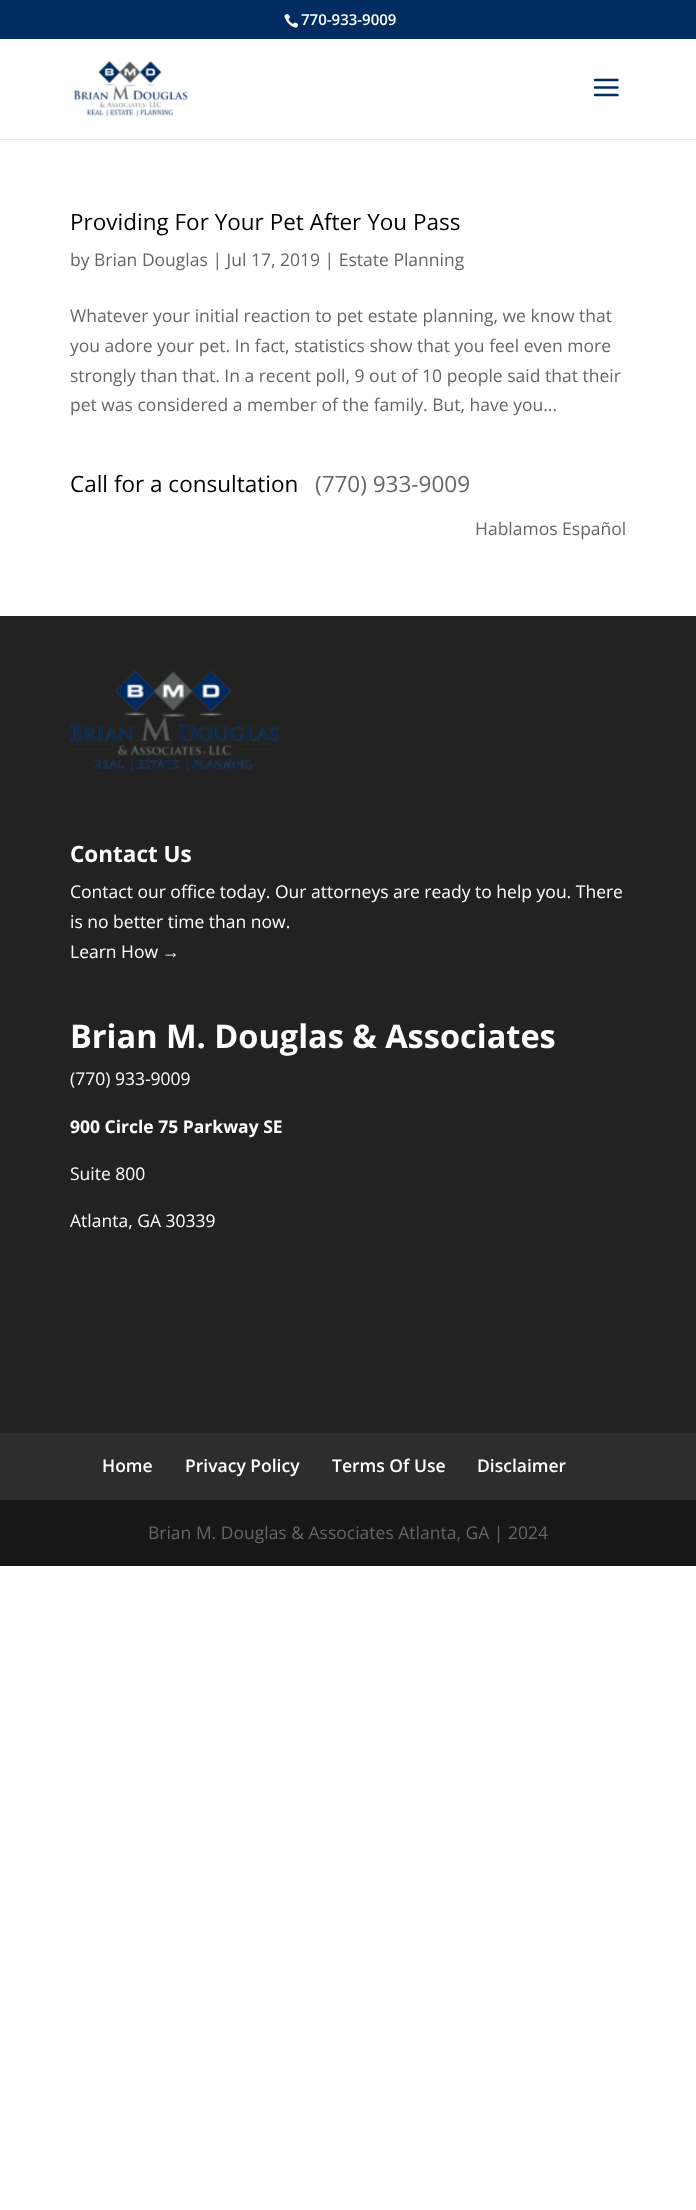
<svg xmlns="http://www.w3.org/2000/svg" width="696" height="2210">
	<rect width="100%" height="100%" fill="#FFFFFF" />
	<rect x="0" y="0" width="696" height="39" fill="#002C61" />
	<image x="284" y="14" width="15" height="14" href="assets/img1.png" />
	<text x="301" y="25" font-family="Open Sans" font-size="15" font-weight="600" fill="#FFFFFF">770-933-9009</text>
	<rect x="0" y="139" width="696" height="1" fill="#E6E6E6" />
	<image x="73" y="61" width="115" height="56" href="assets/img2.png" />
	<image x="593" y="78" width="26" height="19" href="assets/img3.png" />
	<text x="70" y="230" font-family="Open Sans" font-size="22.5" fill="#000000">Providing For Your Pet After You Pass</text>
	<g font-family="Open Sans" font-size="17.5" fill="#666666">
		<text x="70" y="266">by Brian Douglas | Jul 17, 2019 | Estate Planning</text>
		<text x="70" y="322">Whatever your initial reaction to pet estate planning, we know that</text>
		<text x="70" y="352">you adore your pet. In fact, statistics show that you feel even more</text>
		<text x="70" y="382">strongly than that. In a recent poll, 9 out of 10 people said that their</text>
		<text x="70" y="411">pet was considered a member of the family. But, have you...</text>
	</g>
	<text x="70" y="492" font-family="Open Sans" font-size="22.5" fill="#000000">Call for a consultation</text>
	<text x="315" y="492" font-family="Open Sans" font-size="22.5" fill="#666666">(770) 933-9009</text>
	<text x="475" y="535" font-family="Open Sans" font-size="17.5" fill="#666666">Hablamos Español</text>
	<rect x="0" y="616" width="696" height="817" fill="#222222" />
	<image x="70" y="671" width="209" height="101" href="assets/img4.png" />
	<text x="70" y="862" font-family="Open Sans" font-size="22.5" font-weight="700" fill="#FFFFFF">Contact Us</text>
	<g font-family="Open Sans" font-size="17.5" fill="#FFFFFF">
		<text x="70" y="898">Contact our office today. Our attorneys are ready to help you. There</text>
		<text x="70" y="928">is no better time than now.</text>
		<text x="70" y="958">Learn How</text>
	</g>
	<text x="162" y="958" font-family="Liberation Sans" font-size="17.5" fill="#FFFFFF">→</text>
	<text x="70" y="1048" font-family="Open Sans" font-size="32.5" font-weight="700" fill="#FFFFFF">Brian M. Douglas &amp; Associates</text>
	<text x="70" y="1085" font-family="Open Sans" font-size="17.5" fill="#FFFFFF">(770) 933-9009</text>
	<text x="70" y="1133" font-family="Open Sans" font-size="17.5" font-weight="700" fill="#FFFFFF">900 Circle 75 Parkway SE</text>
	<g font-family="Open Sans" font-size="17.5" fill="#FFFFFF">
		<text x="70" y="1180">Suite 800</text>
		<text x="70" y="1227">Atlanta, GA 30339</text>
	</g>
	<rect x="0" y="1433" width="696" height="67" fill="#2D2D2D" />
	<g font-family="Open Sans" font-size="17.5" font-weight="600" fill="#FFFFFF">
		<text x="102" y="1472">Home</text>
		<text x="185" y="1472">Privacy Policy</text>
		<text x="332" y="1472">Terms Of Use</text>
		<text x="477" y="1472">Disclaimer</text>
	</g>
	<rect x="0" y="1500" width="696" height="66" fill="#171717" />
	<text x="148" y="1539" font-family="Open Sans" font-size="17.5" fill="#666666">Brian M. Douglas &amp; Associates Atlanta, GA | 2024</text>
</svg>
